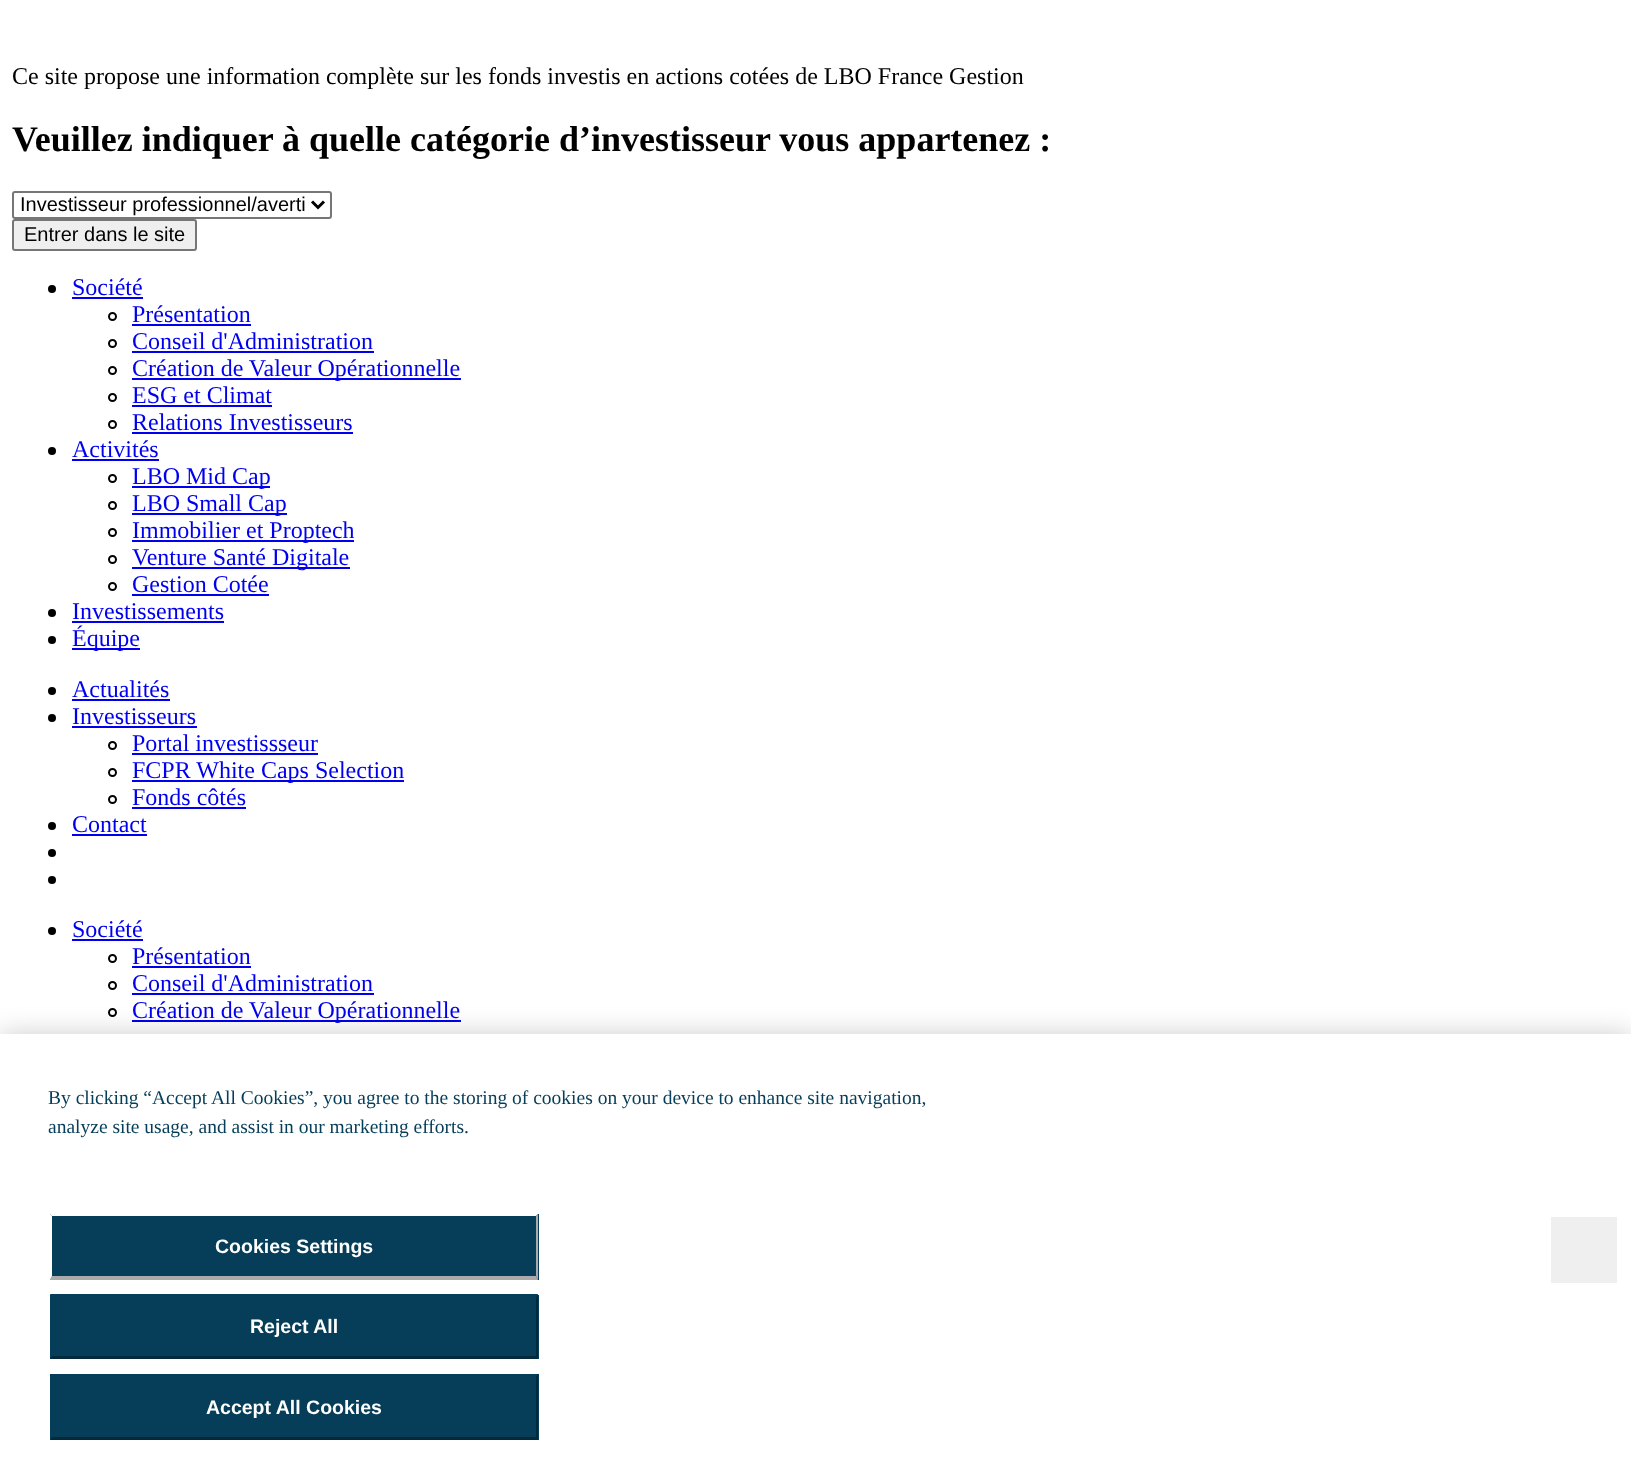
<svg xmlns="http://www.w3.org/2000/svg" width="1631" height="1469">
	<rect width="100%" height="100%" fill="#FFFFFF" />
	<text x="12" y="84" font-family="Liberation Serif" font-size="24" fill="#000000">Ce site propose une information complète sur les fonds investis en actions cotées de LBO France Gestion</text>
	<text x="12" y="151" font-family="Liberation Serif" font-size="36" font-weight="700" fill="#000000">Veuillez indiquer à quelle catégorie d’investisseur vous appartenez :</text>
	<rect x="13" y="192" width="318" height="26" rx="2" fill="none" stroke="#767676" stroke-width="2" />
	<path d="M312 201.5L318 207.5L324 201.5" fill="none" stroke="#000000" stroke-width="3" />
	<text x="20" y="211" font-family="Liberation Sans" font-size="20" fill="#000000">Investisseur professionnel/averti</text>
	<rect x="13" y="220" width="183" height="30" rx="2" fill="#EFEFEF" stroke="#767676" stroke-width="2" />
	<text x="24" y="241" font-family="Liberation Sans" font-size="20" fill="#000000">Entrer dans le site</text>
	<circle cx="52" cy="289" r="4" fill="#000000" />
	<text x="72" y="295" font-family="Liberation Serif" font-size="24" fill="#0000EE">Société</text>
	<rect x="72" y="297" width="71" height="2" fill="#0000EE" />
	<circle cx="112.5" cy="316.5" r="3.5" fill="none" stroke="#000000" stroke-width="2" />
	<text x="132" y="322" font-family="Liberation Serif" font-size="24" fill="#0000EE">Présentation</text>
	<rect x="132" y="324" width="119" height="2" fill="#0000EE" />
	<circle cx="112.5" cy="343.5" r="3.5" fill="none" stroke="#000000" stroke-width="2" />
	<text x="132" y="349" font-family="Liberation Serif" font-size="24" fill="#0000EE">Conseil d'Administration</text>
	<rect x="132" y="351" width="242" height="2" fill="#0000EE" />
	<circle cx="112.5" cy="370.5" r="3.5" fill="none" stroke="#000000" stroke-width="2" />
	<rect x="132" y="378" width="329" height="2" fill="#0000EE" />
	<text x="132" y="376" font-family="Liberation Serif" font-size="24" fill="#0000EE">Création de Valeur Opérationnelle</text>
	<circle cx="112.5" cy="397.5" r="3.5" fill="none" stroke="#000000" stroke-width="2" />
	<text x="132" y="403" font-family="Liberation Serif" font-size="24" fill="#0000EE">ESG et Climat</text>
	<rect x="132" y="405" width="140" height="2" fill="#0000EE" />
	<circle cx="112.5" cy="424.5" r="3.5" fill="none" stroke="#000000" stroke-width="2" />
	<text x="132" y="430" font-family="Liberation Serif" font-size="24" fill="#0000EE">Relations Investisseurs</text>
	<rect x="132" y="432" width="221" height="2" fill="#0000EE" />
	<circle cx="52" cy="451" r="4" fill="#000000" />
	<text x="72" y="457" font-family="Liberation Serif" font-size="24" fill="#0000EE">Activités</text>
	<rect x="72" y="459" width="87" height="2" fill="#0000EE" />
	<circle cx="112.5" cy="478.5" r="3.5" fill="none" stroke="#000000" stroke-width="2" />
	<rect x="132" y="486" width="138" height="2" fill="#0000EE" />
	<text x="132" y="484" font-family="Liberation Serif" font-size="24" fill="#0000EE">LBO Mid Cap</text>
	<circle cx="112.5" cy="505.5" r="3.5" fill="none" stroke="#000000" stroke-width="2" />
	<rect x="132" y="513" width="155" height="2" fill="#0000EE" />
	<text x="132" y="511" font-family="Liberation Serif" font-size="24" fill="#0000EE">LBO Small Cap</text>
	<circle cx="112.5" cy="532.5" r="3.5" fill="none" stroke="#000000" stroke-width="2" />
	<rect x="132" y="540" width="222" height="2" fill="#0000EE" />
	<text x="132" y="538" font-family="Liberation Serif" font-size="24" fill="#0000EE">Immobilier et Proptech</text>
	<circle cx="112.5" cy="559.5" r="3.5" fill="none" stroke="#000000" stroke-width="2" />
	<rect x="132" y="567" width="218" height="2" fill="#0000EE" />
	<text x="132" y="565" font-family="Liberation Serif" font-size="24" fill="#0000EE">Venture Santé Digitale</text>
	<circle cx="112.5" cy="586.5" r="3.5" fill="none" stroke="#000000" stroke-width="2" />
	<text x="132" y="592" font-family="Liberation Serif" font-size="24" fill="#0000EE">Gestion Cotée</text>
	<rect x="132" y="594" width="137" height="2" fill="#0000EE" />
	<circle cx="52" cy="613" r="4" fill="#000000" />
	<text x="72" y="619" font-family="Liberation Serif" font-size="24" fill="#0000EE">Investissements</text>
	<rect x="72" y="621" width="152" height="2" fill="#0000EE" />
	<circle cx="52" cy="640" r="4" fill="#000000" />
	<rect x="72" y="648" width="68" height="2" fill="#0000EE" />
	<text x="72" y="646" font-family="Liberation Serif" font-size="24" fill="#0000EE">Équipe</text>
	<circle cx="52" cy="691" r="4" fill="#000000" />
	<text x="72" y="697" font-family="Liberation Serif" font-size="24" fill="#0000EE">Actualités</text>
	<rect x="72" y="699" width="98" height="2" fill="#0000EE" />
	<circle cx="52" cy="718" r="4" fill="#000000" />
	<text x="72" y="724" font-family="Liberation Serif" font-size="24" fill="#0000EE">Investisseurs</text>
	<rect x="72" y="726" width="125" height="2" fill="#0000EE" />
	<circle cx="112.5" cy="745.5" r="3.5" fill="none" stroke="#000000" stroke-width="2" />
	<text x="132" y="751" font-family="Liberation Serif" font-size="24" fill="#0000EE">Portal investissseur</text>
	<rect x="132" y="753" width="186" height="2" fill="#0000EE" />
	<circle cx="112.5" cy="772.5" r="3.5" fill="none" stroke="#000000" stroke-width="2" />
	<rect x="132" y="780" width="272" height="2" fill="#0000EE" />
	<text x="132" y="778" font-family="Liberation Serif" font-size="24" fill="#0000EE">FCPR White Caps Selection</text>
	<circle cx="112.5" cy="799.5" r="3.5" fill="none" stroke="#000000" stroke-width="2" />
	<text x="132" y="805" font-family="Liberation Serif" font-size="24" fill="#0000EE">Fonds côtés</text>
	<rect x="132" y="807" width="114" height="2" fill="#0000EE" />
	<circle cx="52" cy="826" r="4" fill="#000000" />
	<text x="72" y="832" font-family="Liberation Serif" font-size="24" fill="#0000EE">Contact</text>
	<rect x="72" y="834" width="75" height="2" fill="#0000EE" />
	<circle cx="52" cy="853" r="4" fill="#000000" />
	<circle cx="52" cy="880" r="4" fill="#000000" />
	<circle cx="52" cy="931" r="4" fill="#000000" />
	<text x="72" y="937" font-family="Liberation Serif" font-size="24" fill="#0000EE">Société</text>
	<rect x="72" y="939" width="71" height="2" fill="#0000EE" />
	<circle cx="112.5" cy="958.5" r="3.5" fill="none" stroke="#000000" stroke-width="2" />
	<text x="132" y="964" font-family="Liberation Serif" font-size="24" fill="#0000EE">Présentation</text>
	<rect x="132" y="966" width="119" height="2" fill="#0000EE" />
	<circle cx="112.5" cy="985.5" r="3.5" fill="none" stroke="#000000" stroke-width="2" />
	<text x="132" y="991" font-family="Liberation Serif" font-size="24" fill="#0000EE">Conseil d'Administration</text>
	<rect x="132" y="993" width="242" height="2" fill="#0000EE" />
	<circle cx="112.5" cy="1012.5" r="3.5" fill="none" stroke="#000000" stroke-width="2" />
	<rect x="132" y="1020" width="329" height="2" fill="#0000EE" />
	<text x="132" y="1018" font-family="Liberation Serif" font-size="24" fill="#0000EE">Création de Valeur Opérationnelle</text>
	<rect x="0" y="1034" width="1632" height="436" fill="#000000" fill-opacity="0.2" filter="blur(13.5px)" />
	<rect x="0" y="1034" width="1631" height="435" fill="#FFFFFF" />
	<g font-family="Liberation Serif" font-size="19.5" fill="#063D58">
		<text x="48" y="1104">By clicking “Accept All Cookies”, you agree to the storing of cookies on your device to enhance site navigation,</text>
		<text x="48" y="1133">analyze site usage, and assist in our marketing efforts.</text>
	</g>
	<rect x="50" y="1214" width="489" height="66" fill="#063D58" />
	<path d="M50 1214H538L536 1216H52Z" fill="#FFFFFF" />
	<path d="M538 1214V1280L536 1276V1216Z" fill="#AAAAAA" />
	<path d="M538 1280H50L52 1276H536Z" fill="#AAAAAA" />
	<path d="M50 1280V1214L52 1216V1276Z" fill="#FFFFFF" />
	<text x="215" y="1253" font-family="Liberation Sans" font-size="19.5" font-weight="700" fill="#FFFFFF">Cookies Settings</text>
	<rect x="50" y="1295" width="489" height="64" fill="#063D58" />
	<path d="M50 1294H538L536 1298H52Z" fill="#063D58" />
	<path d="M538 1294V1359L536 1356V1298Z" fill="#04293B" />
	<path d="M538 1359H50L52 1356H536Z" fill="#04293B" />
	<path d="M50 1359V1294L52 1298V1356Z" fill="#063D58" />
	<text x="250" y="1333" font-family="Liberation Sans" font-size="19.5" font-weight="700" fill="#FFFFFF">Reject All</text>
	<rect x="50" y="1374" width="489" height="66" fill="#063D58" />
	<path d="M538 1374V1440L536 1437V1377Z" fill="#04293B" />
	<path d="M538 1440H50L52 1437H536Z" fill="#04293B" />
	<path d="M50 1440V1374L52 1377V1437Z" fill="#063D58" />
	<text x="206" y="1414" font-family="Liberation Sans" font-size="19.5" font-weight="700" fill="#FFFFFF">Accept All Cookies</text>
	<rect x="1551" y="1217" width="66" height="66" fill="#EFEFEF" />
</svg>
